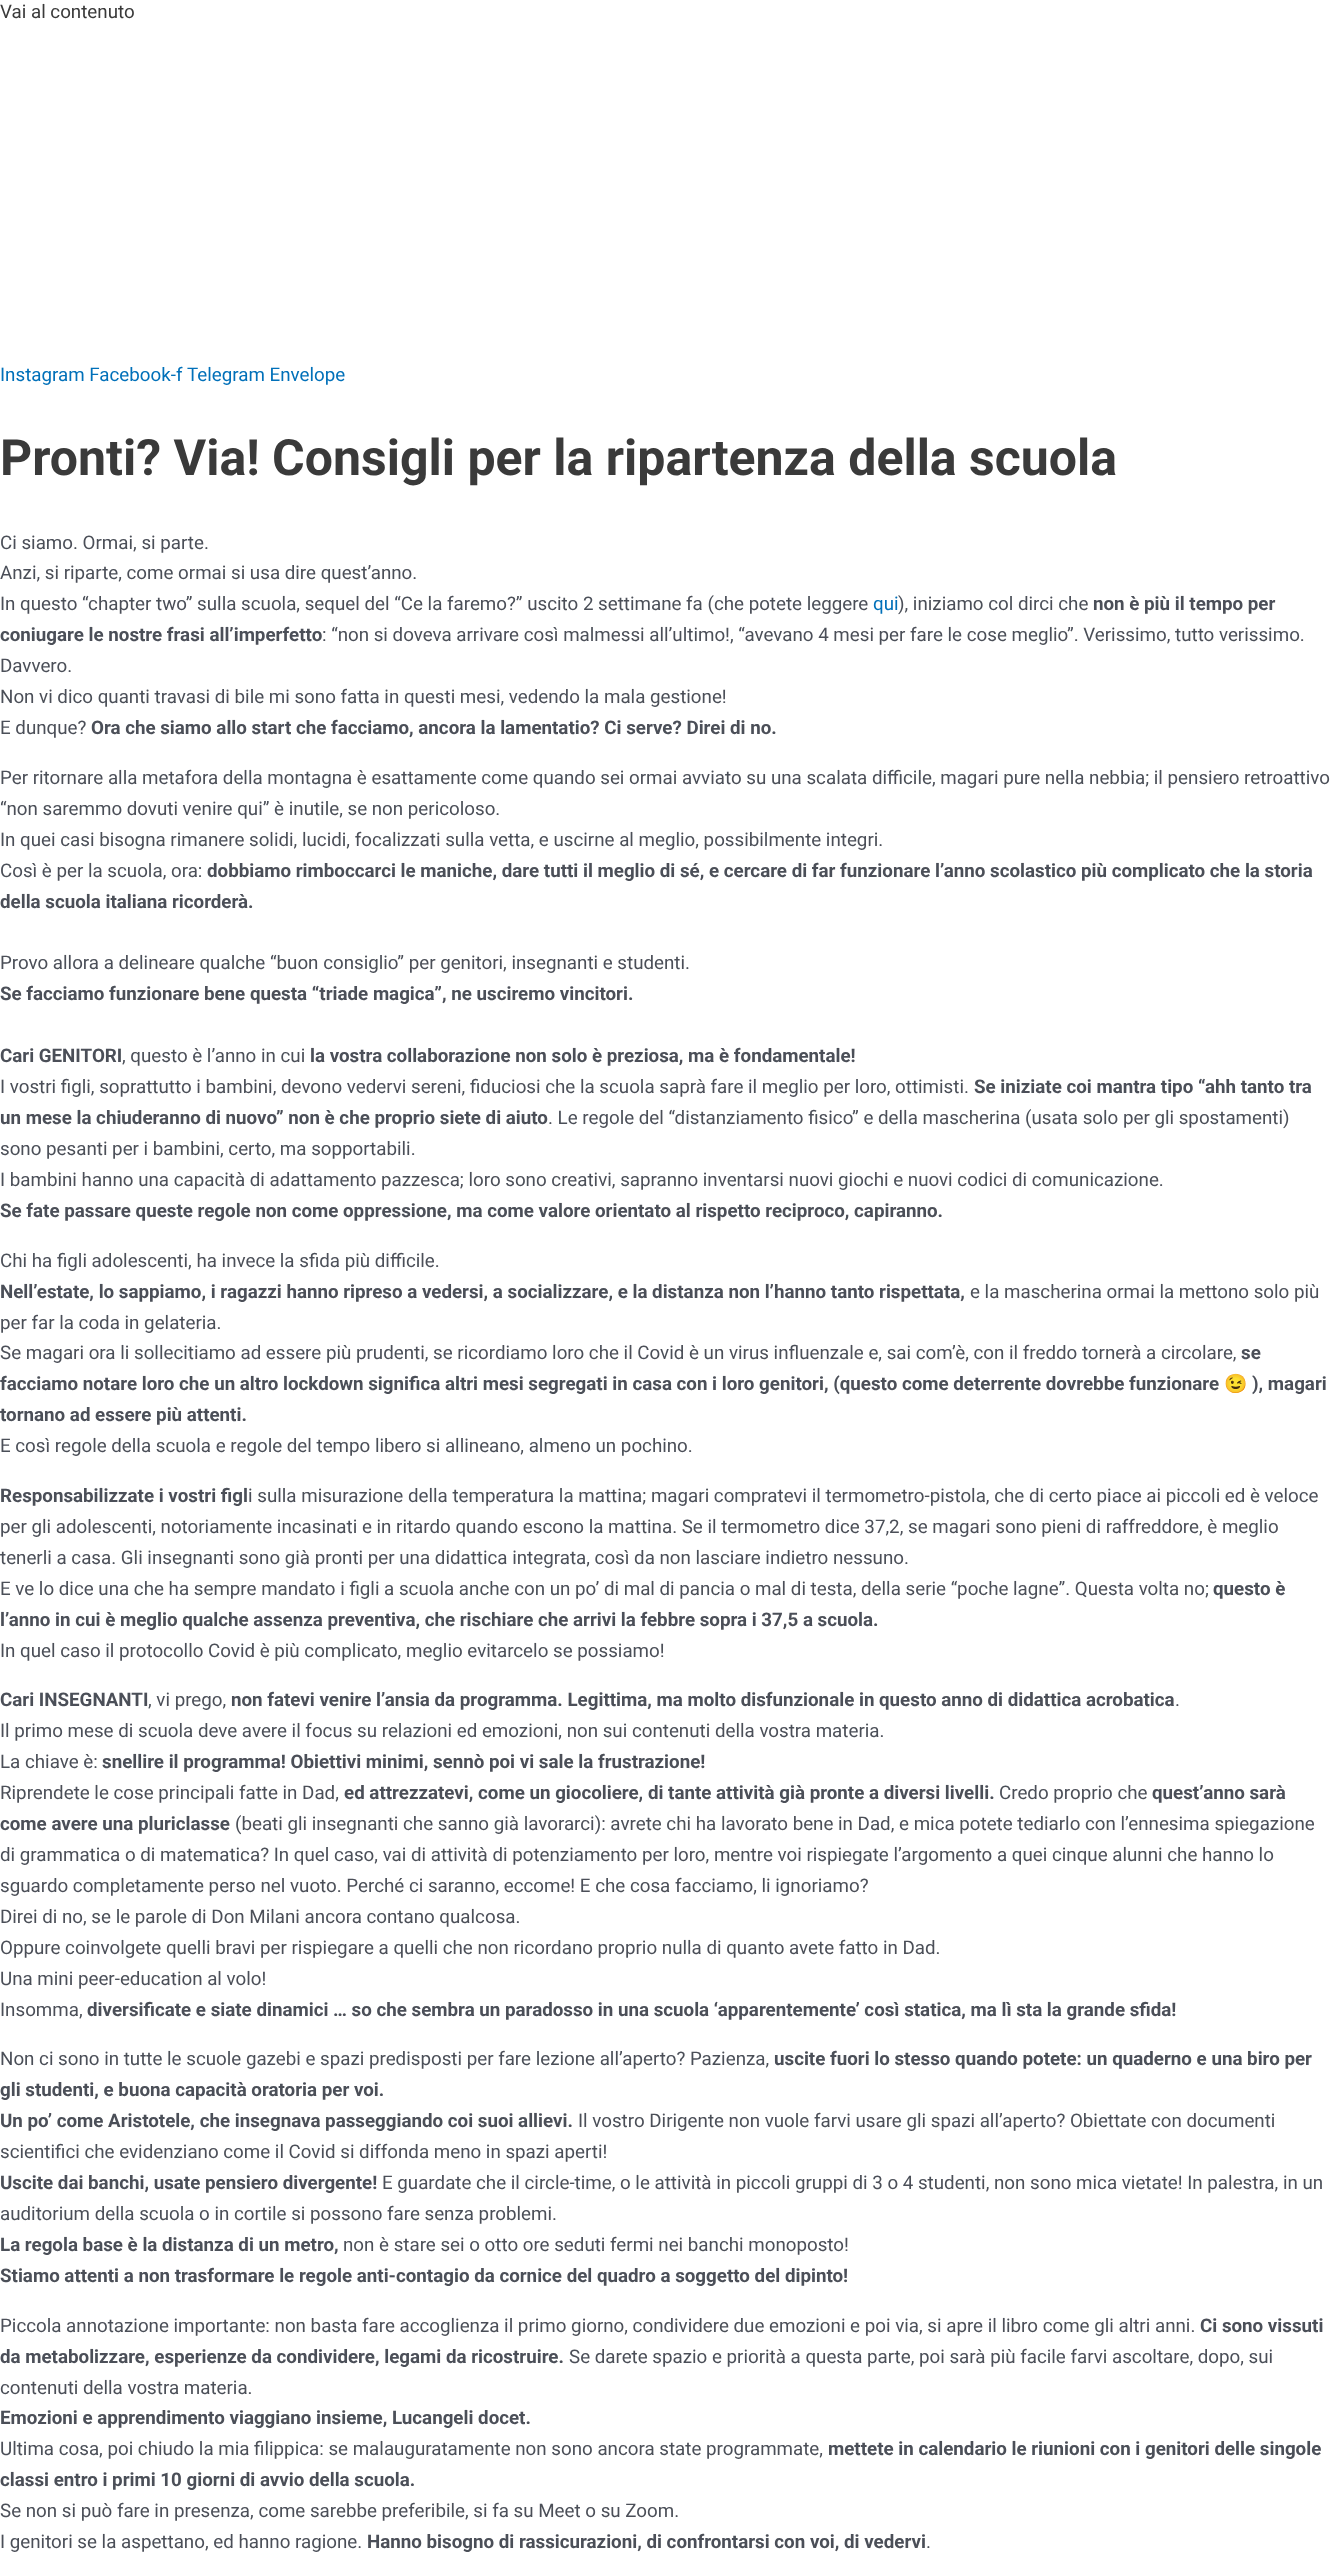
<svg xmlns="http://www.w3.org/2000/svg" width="1330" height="2568">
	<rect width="100%" height="100%" fill="#FFFFFF" />
	<text x="0" y="18" font-family="Roboto" font-size="18.75" fill="#3A3A3A">Vai al contenuto</text>
	<g font-family="Roboto" font-size="18.75" fill="#0170B9">
		<text x="0" y="381">Instagram Facebook-f</text>
		<text x="187" y="381">Telegram Envelope</text>
	</g>
	<text x="0" y="475" font-family="Roboto" font-size="50" font-weight="700" fill="#3A3A3A">Pronti? Via! Consigli per la ripartenza della scuola</text>
	<g font-family="Roboto" font-size="18.75" fill="#4B4F58">
		<text x="0" y="549">Ci siamo. Ormai, si parte.</text>
		<text x="0" y="579">Anzi, si riparte, come ormai si usa dire quest’anno.</text>
		<text x="0" y="610">In questo “chapter two” sulla scuola, sequel del “Ce la faremo?” uscito 2 settimane fa (che potete leggere</text>
	</g>
	<text x="873" y="610" font-family="Roboto" font-size="18.75" fill="#0170B9">qui</text>
	<text x="898" y="610" font-family="Roboto" font-size="18.75" fill="#4B4F58">), iniziamo col dirci che</text>
	<g font-family="Roboto" font-size="18.75" font-weight="700" fill="#4B4F58">
		<text x="1093" y="610">non è più il tempo per</text>
		<text x="0" y="641">coniugare le nostre frasi all’imperfetto</text>
	</g>
	<g font-family="Roboto" font-size="18.75" fill="#4B4F58">
		<text x="322" y="641">: “non si doveva arrivare così malmessi all’ultimo!, “avevano 4 mesi per fare le cose meglio”. Verissimo, tutto verissimo.</text>
		<text x="0" y="672">Davvero.</text>
		<text x="0" y="703">Non vi dico quanti travasi di bile mi sono fatta in questi mesi, vedendo la mala gestione!</text>
		<text x="0" y="734">E dunque?</text>
	</g>
	<text x="91" y="734" font-family="Roboto" font-size="18.75" font-weight="700" fill="#4B4F58">Ora che siamo allo start che facciamo, ancora la lamentatio? Ci serve? Direi di no.</text>
	<g font-family="Roboto" font-size="18.75" fill="#4B4F58">
		<text x="0" y="784">Per ritornare alla metafora della montagna è esattamente come quando sei ormai avviato su una scalata difficile, magari pure nella nebbia; il pensiero retroattivo</text>
		<text x="0" y="815">“non saremmo dovuti venire qui” è inutile, se non pericoloso.</text>
		<text x="0" y="846">In quei casi bisogna rimanere solidi, lucidi, focalizzati sulla vetta, e uscirne al meglio, possibilmente integri.</text>
		<text x="0" y="877">Così è per la scuola, ora:</text>
	</g>
	<g font-family="Roboto" font-size="18.75" font-weight="700" fill="#4B4F58">
		<text x="207" y="877">dobbiamo rimboccarci le maniche, dare tutti il meglio di sé, e cercare di far funzionare l’anno scolastico più complicato che la storia</text>
		<text x="0" y="908">della scuola italiana ricorderà.</text>
	</g>
	<text x="0" y="969" font-family="Roboto" font-size="18.75" fill="#4B4F58">Provo allora a delineare qualche “buon consiglio” per genitori, insegnanti e studenti.</text>
	<g font-family="Roboto" font-size="18.75" font-weight="700" fill="#4B4F58">
		<text x="0" y="1000">Se facciamo funzionare bene questa “triade magica”, ne usciremo vincitori.</text>
		<text x="0" y="1062">Cari GENITORI</text>
	</g>
	<text x="122" y="1062" font-family="Roboto" font-size="18.75" fill="#4B4F58">, questo è l’anno in cui</text>
	<text x="310" y="1062" font-family="Roboto" font-size="18.75" font-weight="700" fill="#4B4F58">la vostra collaborazione non solo è preziosa, ma è fondamentale!</text>
	<text x="0" y="1093" font-family="Roboto" font-size="18.75" fill="#4B4F58">I vostri figli, soprattutto i bambini, devono vedervi sereni, fiduciosi che la scuola saprà fare il meglio per loro, ottimisti.</text>
	<g font-family="Roboto" font-size="18.75" font-weight="700" fill="#4B4F58">
		<text x="974" y="1093">Se iniziate coi mantra tipo “ahh tanto tra</text>
		<text x="0" y="1124">un mese la chiuderanno di nuovo” non è che proprio siete di aiuto</text>
	</g>
	<g font-family="Roboto" font-size="18.75" fill="#4B4F58">
		<text x="548" y="1124">. Le regole del “distanziamento fisico” e della mascherina (usata solo per gli spostamenti)</text>
		<text x="0" y="1155">sono pesanti per i bambini, certo, ma sopportabili.</text>
		<text x="0" y="1186">I bambini hanno una capacità di adattamento pazzesca; loro sono creativi, sapranno inventarsi nuovi giochi e nuovi codici di comunicazione.</text>
	</g>
	<text x="0" y="1217" font-family="Roboto" font-size="18.75" font-weight="700" fill="#4B4F58">Se fate passare queste regole non come oppressione, ma come valore orientato al rispetto reciproco, capiranno.</text>
	<text x="0" y="1267" font-family="Roboto" font-size="18.75" fill="#4B4F58">Chi ha figli adolescenti, ha invece la sfida più difficile.</text>
	<text x="0" y="1298" font-family="Roboto" font-size="18.75" font-weight="700" fill="#4B4F58">Nell’estate, lo sappiamo, i ragazzi hanno ripreso a vedersi, a socializzare, e la distanza non l’hanno tanto rispettata,</text>
	<g font-family="Roboto" font-size="18.75" fill="#4B4F58">
		<text x="970" y="1298">e la mascherina ormai la mettono solo più</text>
		<text x="0" y="1329">per far la coda in gelateria.</text>
		<text x="0" y="1359">Se magari ora li sollecitiamo ad essere più prudenti, se ricordiamo loro che il Covid è un virus influenzale e, sai com’è, con il freddo tornerà a circolare,</text>
	</g>
	<g font-family="Roboto" font-size="18.75" font-weight="700" fill="#4B4F58">
		<text x="1241" y="1359">se</text>
		<text x="0" y="1390">facciamo notare loro che un altro lockdown significa altri mesi segregati in casa con i loro genitori, (questo come deterrente dovrebbe funzionare</text>
	</g>
	<text x="1224" y="1390" font-family="Noto Color Emoji" font-size="18.75" font-weight="700" fill="#4B4F58">😉</text>
	<g font-family="Roboto" font-size="18.75" font-weight="700" fill="#4B4F58">
		<text x="1252" y="1390">), magari</text>
		<text x="0" y="1421">tornano ad essere più attenti.</text>
	</g>
	<text x="0" y="1452" font-family="Roboto" font-size="18.75" fill="#4B4F58">E così regole della scuola e regole del tempo libero si allineano, almeno un pochino.</text>
	<text x="0" y="1502" font-family="Roboto" font-size="18.75" font-weight="700" fill="#4B4F58">Responsabilizzate i vostri figl</text>
	<g font-family="Roboto" font-size="18.75" fill="#4B4F58">
		<text x="248" y="1502">i sulla misurazione della temperatura la mattina; magari compratevi il termometro-pistola, che di certo piace ai piccoli ed è veloce</text>
		<text x="0" y="1533">per gli adolescenti, notoriamente incasinati e in ritardo quando escono la mattina. Se il termometro dice 37,2, se magari sono pieni di raffreddore, è meglio</text>
		<text x="0" y="1564">tenerli a casa. Gli insegnanti sono già pronti per una didattica integrata, così da non lasciare indietro nessuno.</text>
		<text x="0" y="1595">E ve lo dice una che ha sempre mandato i figli a scuola anche con un po’ di mal di pancia o mal di testa, della serie “poche lagne”. Questa volta no;</text>
	</g>
	<g font-family="Roboto" font-size="18.75" font-weight="700" fill="#4B4F58">
		<text x="1213" y="1595">questo è</text>
		<text x="0" y="1626">l’anno in cui è meglio qualche assenza preventiva, che rischiare che arrivi la febbre sopra i 37,5 a scuola.</text>
	</g>
	<text x="0" y="1657" font-family="Roboto" font-size="18.75" fill="#4B4F58">In quel caso il protocollo Covid è più complicato, meglio evitarcelo se possiamo!</text>
	<text x="0" y="1706" font-family="Roboto" font-size="18.75" font-weight="700" fill="#4B4F58">Cari INSEGNANTI</text>
	<text x="148" y="1706" font-family="Roboto" font-size="18.75" fill="#4B4F58">, vi prego,</text>
	<text x="231" y="1706" font-family="Roboto" font-size="18.75" font-weight="700" fill="#4B4F58">non fatevi venire l’ansia da programma. Legittima, ma molto disfunzionale in questo anno di didattica acrobatica</text>
	<g font-family="Roboto" font-size="18.75" fill="#4B4F58">
		<text x="1175" y="1706">.</text>
		<text x="0" y="1737">Il primo mese di scuola deve avere il focus su relazioni ed emozioni, non sui contenuti della vostra materia.</text>
		<text x="0" y="1768">La chiave è:</text>
	</g>
	<text x="102" y="1768" font-family="Roboto" font-size="18.75" font-weight="700" fill="#4B4F58">snellire il programma! Obiettivi minimi, sennò poi vi sale la frustrazione!</text>
	<text x="0" y="1799" font-family="Roboto" font-size="18.75" fill="#4B4F58">Riprendete le cose principali fatte in Dad,</text>
	<text x="344" y="1799" font-family="Roboto" font-size="18.75" font-weight="700" fill="#4B4F58">ed attrezzatevi, come un giocoliere, di tante attività già pronte a diversi livelli.</text>
	<text x="999" y="1799" font-family="Roboto" font-size="18.75" fill="#4B4F58">Credo proprio che</text>
	<g font-family="Roboto" font-size="18.75" font-weight="700" fill="#4B4F58">
		<text x="1152" y="1799">quest’anno sarà</text>
		<text x="0" y="1830">come avere una pluriclasse</text>
	</g>
	<g font-family="Roboto" font-size="18.75" fill="#4B4F58">
		<text x="235" y="1830">(beati gli insegnanti che sanno già lavorarci): avrete chi ha lavorato bene in Dad, e mica potete tediarlo con l’ennesima spiegazione</text>
		<text x="0" y="1861">di grammatica o di matematica? In quel caso, vai di attività di potenziamento per loro, mentre voi rispiegate l’argomento a quei cinque alunni che hanno lo</text>
		<text x="0" y="1892">sguardo completamente perso nel vuoto. Perché ci saranno, eccome! E che cosa facciamo, li ignoriamo?</text>
		<text x="0" y="1923">Direi di no, se le parole di Don Milani ancora contano qualcosa.</text>
		<text x="0" y="1954">Oppure coinvolgete quelli bravi per rispiegare a quelli che non ricordano proprio nulla di quanto avete fatto in Dad.</text>
		<text x="0" y="1985">Una mini peer-education al volo!</text>
		<text x="0" y="2016">Insomma,</text>
	</g>
	<text x="87" y="2016" font-family="Roboto" font-size="18.75" font-weight="700" fill="#4B4F58">diversificate e siate dinamici … so che sembra un paradosso in una scuola ‘apparentemente’ così statica, ma lì sta la grande sfida!</text>
	<text x="0" y="2065" font-family="Roboto" font-size="18.75" fill="#4B4F58">Non ci sono in tutte le scuole gazebi e spazi predisposti per fare lezione all’aperto? Pazienza,</text>
	<g font-family="Roboto" font-size="18.75" font-weight="700" fill="#4B4F58">
		<text x="774" y="2065">uscite fuori lo stesso quando potete: un quaderno e una biro per</text>
		<text x="0" y="2096">gli studenti, e buona capacità oratoria per voi.</text>
		<text x="0" y="2127">Un po’ come Aristotele, che insegnava passeggiando coi suoi allievi.</text>
	</g>
	<g font-family="Roboto" font-size="18.75" fill="#4B4F58">
		<text x="578" y="2127">Il vostro Dirigente non vuole farvi usare gli spazi all’aperto? Obiettate con documenti</text>
		<text x="0" y="2158">scientifici che evidenziano come il Covid si diffonda meno in spazi aperti!</text>
	</g>
	<text x="0" y="2189" font-family="Roboto" font-size="18.75" font-weight="700" fill="#4B4F58">Uscite dai banchi, usate pensiero divergente!</text>
	<g font-family="Roboto" font-size="18.75" fill="#4B4F58">
		<text x="382" y="2189">E guardate che il circle-time, o le attività in piccoli gruppi di 3 o 4 studenti, non sono mica vietate! In palestra, in un</text>
		<text x="0" y="2220">auditorium della scuola o in cortile si possono fare senza problemi.</text>
	</g>
	<text x="0" y="2251" font-family="Roboto" font-size="18.75" font-weight="700" fill="#4B4F58">La regola base è la distanza di un metro,</text>
	<text x="343" y="2251" font-family="Roboto" font-size="18.75" fill="#4B4F58">non è stare sei o otto ore seduti fermi nei banchi monoposto!</text>
	<text x="0" y="2282" font-family="Roboto" font-size="18.75" font-weight="700" fill="#4B4F58">Stiamo attenti a non trasformare le regole anti-contagio da cornice del quadro a soggetto del dipinto!</text>
	<text x="0" y="2332" font-family="Roboto" font-size="18.75" fill="#4B4F58">Piccola annotazione importante: non basta fare accoglienza il primo giorno, condividere due emozioni e poi via, si apre il libro come gli altri anni.</text>
	<g font-family="Roboto" font-size="18.75" font-weight="700" fill="#4B4F58">
		<text x="1200" y="2332">Ci sono vissuti</text>
		<text x="0" y="2363">da metabolizzare, esperienze da condividere, legami da ricostruire.</text>
	</g>
	<g font-family="Roboto" font-size="18.75" fill="#4B4F58">
		<text x="569" y="2363">Se darete spazio e priorità a questa parte, poi sarà più facile farvi ascoltare, dopo, sui</text>
		<text x="0" y="2394">contenuti della vostra materia.</text>
	</g>
	<text x="0" y="2424" font-family="Roboto" font-size="18.75" font-weight="700" fill="#4B4F58">Emozioni e apprendimento viaggiano insieme, Lucangeli docet.</text>
	<text x="0" y="2455" font-family="Roboto" font-size="18.75" fill="#4B4F58">Ultima cosa, poi chiudo la mia filippica: se malauguratamente non sono ancora state programmate,</text>
	<g font-family="Roboto" font-size="18.75" font-weight="700" fill="#4B4F58">
		<text x="828" y="2455">mettete in calendario le riunioni con i genitori delle singole</text>
		<text x="0" y="2486">classi entro i primi 10 giorni di avvio della scuola.</text>
	</g>
	<g font-family="Roboto" font-size="18.75" fill="#4B4F58">
		<text x="0" y="2517">Se non si può fare in presenza, come sarebbe preferibile, si fa su Meet o su Zoom.</text>
		<text x="0" y="2548">I genitori se la aspettano, ed hanno ragione.</text>
	</g>
	<text x="367" y="2548" font-family="Roboto" font-size="18.75" font-weight="700" fill="#4B4F58">Hanno bisogno di rassicurazioni, di confrontarsi con voi, di vedervi</text>
	<text x="926" y="2548" font-family="Roboto" font-size="18.75" fill="#4B4F58">.</text>
</svg>
